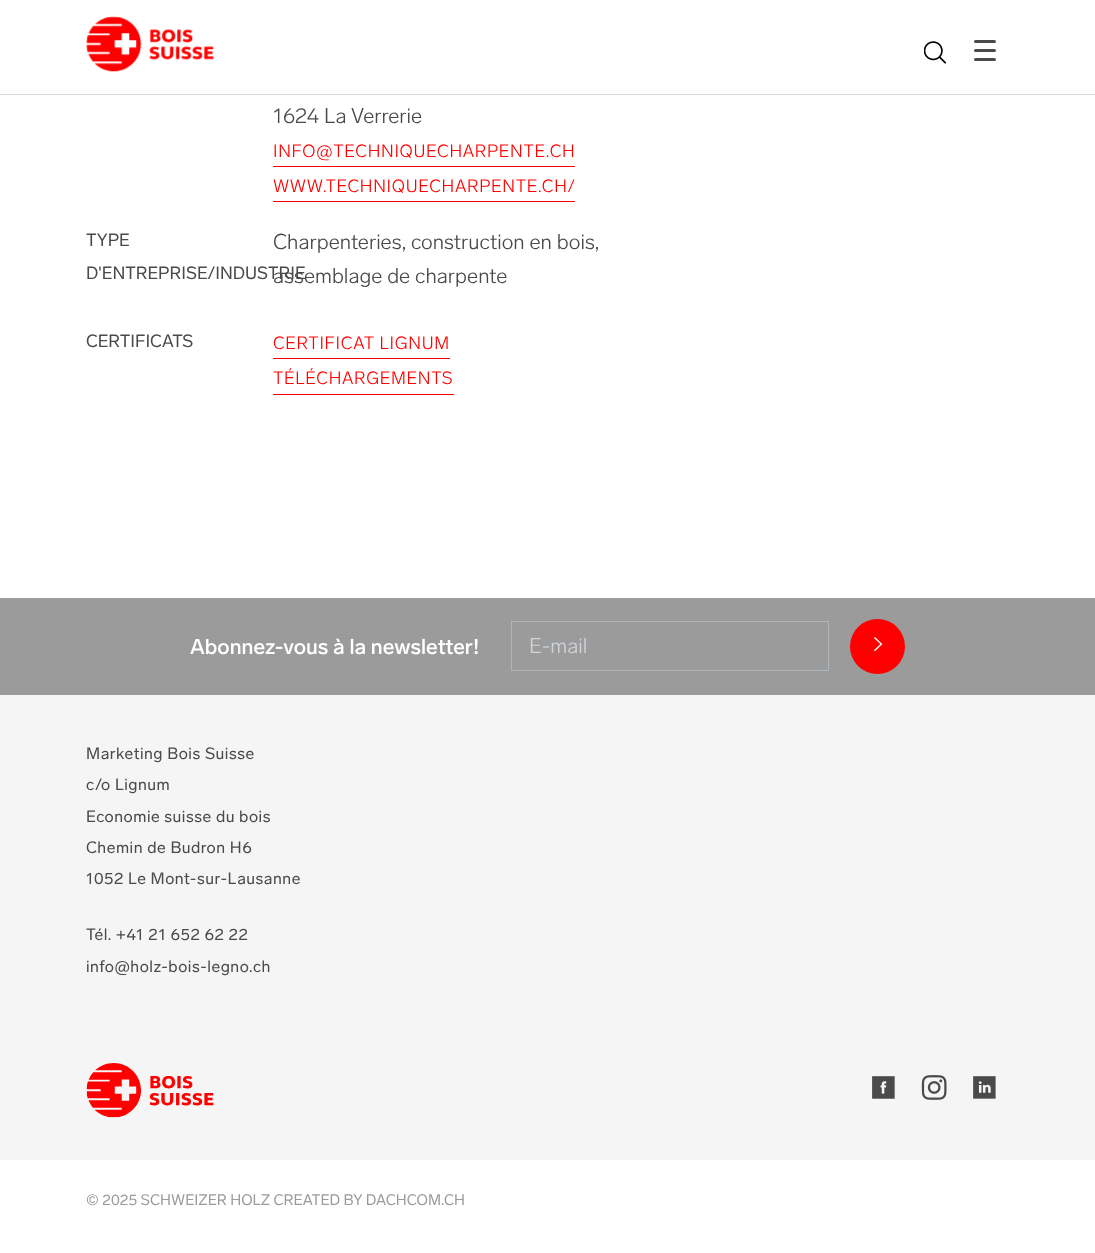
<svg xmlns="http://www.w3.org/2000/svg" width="1095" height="1253">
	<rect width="100%" height="100%" fill="#FFFFFF" />
	<rect x="0" y="94" width="1095" height="1" fill="#D8D8D8" />
	<image x="86" y="16" width="129" height="56" href="assets/img1.png" />
	<image x="924" y="41" width="22" height="23" href="assets/img2.png" />
	<rect x="974" y="40" width="22" height="3" rx="1.5" fill="#4A4A4A" />
	<rect x="974" y="49" width="22" height="3" rx="1.5" fill="#4A4A4A" />
	<rect x="974" y="58" width="22" height="3" rx="1.5" fill="#4A4A4A" />
	<text x="273" y="123" font-family="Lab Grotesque" font-size="21.25" font-weight="300" fill="#4A4A4A">1624 La Verrerie</text>
	<text x="273" y="157" font-family="Lab Grotesque" font-size="17.5" font-weight="300" letter-spacing="0.7" fill="#FF0000">INFO@TECHNIQUECHARPENTE.CH</text>
	<rect x="273" y="166" width="302" height="1" fill="#FF0000" />
	<text x="273" y="192" font-family="Lab Grotesque" font-size="17.5" font-weight="300" letter-spacing="0.7" fill="#FF0000">WWW.TECHNIQUECHARPENTE.CH/</text>
	<rect x="273" y="201" width="302" height="1" fill="#FF0000" />
	<g font-family="Lab Grotesque" font-size="17.5" fill="#4A4A4A">
		<text x="86" y="246">TYPE</text>
		<text x="86" y="279">D'ENTREPRISE/INDUSTRIE</text>
	</g>
	<g font-family="Lab Grotesque" font-size="21.25" font-weight="300" fill="#4A4A4A">
		<text x="273" y="249">Charpenteries, construction en bois,</text>
		<text x="273" y="283">assemblage de charpente</text>
	</g>
	<text x="86" y="347" font-family="Lab Grotesque" font-size="17.5" fill="#4A4A4A">CERTIFICATS</text>
	<text x="273" y="349" font-family="Lab Grotesque" font-size="17.5" font-weight="300" letter-spacing="0.7" fill="#FF0000">CERTIFICAT LIGNUM</text>
	<rect x="273" y="358" width="177" height="1" fill="#FF0000" />
	<text x="273" y="384" font-family="Lab Grotesque" font-size="17.5" font-weight="300" letter-spacing="0.7" fill="#FF0000">TÉLÉCHARGEMENTS</text>
	<rect x="273" y="394" width="181" height="1" fill="#FF0000" />
	<rect x="0" y="598" width="1095" height="97" fill="#9B9B9B" />
	<text x="190" y="654" font-family="Lab Grotesque" font-size="21.25" font-weight="500" fill="#FFFFFF">Abonnez-vous à la newsletter!</text>
	<rect x="511.5" y="621.5" width="317" height="49" fill="none" stroke="#ADB5BD" />
	<text x="529" y="653" font-family="Lab Grotesque" font-size="21.25" font-weight="300" fill="#CED4DA">E-mail</text>
	<circle cx="877.5" cy="646.5" r="27.5" fill="#FF0000" />
	<image x="874" y="637" width="9" height="15" href="assets/img3.png" />
	<rect x="0" y="695" width="1095" height="465" fill="#F5F5F5" />
	<g font-family="Lab Grotesque" font-size="16.25" letter-spacing="0.5" fill="#4A4A4A">
		<text x="86" y="759">Marketing Bois Suisse</text>
		<text x="86" y="790">c/o Lignum</text>
		<text x="86" y="822">Economie suisse du bois</text>
		<text x="86" y="853">Chemin de Budron H6</text>
		<text x="86" y="884">1052 Le Mont-sur-Lausanne</text>
		<text x="86" y="940">Tél. +41 21 652 62 22</text>
		<text x="86" y="972">info@holz-bois-legno.ch</text>
	</g>
	<image x="86" y="1063" width="128" height="55" href="assets/img4.png" />
	<image x="872" y="1076" width="23" height="23" href="assets/img5.png" />
	<image x="921" y="1075" width="26" height="25" href="assets/img6.png" />
	<image x="973" y="1076" width="23" height="23" href="assets/img7.png" />
	<text x="86" y="1205" font-family="Lab Grotesque" font-size="15" fill="#9B9B9B">© 2025 SCHWEIZER HOLZ CREATED BY DACHCOM.CH</text>
</svg>
